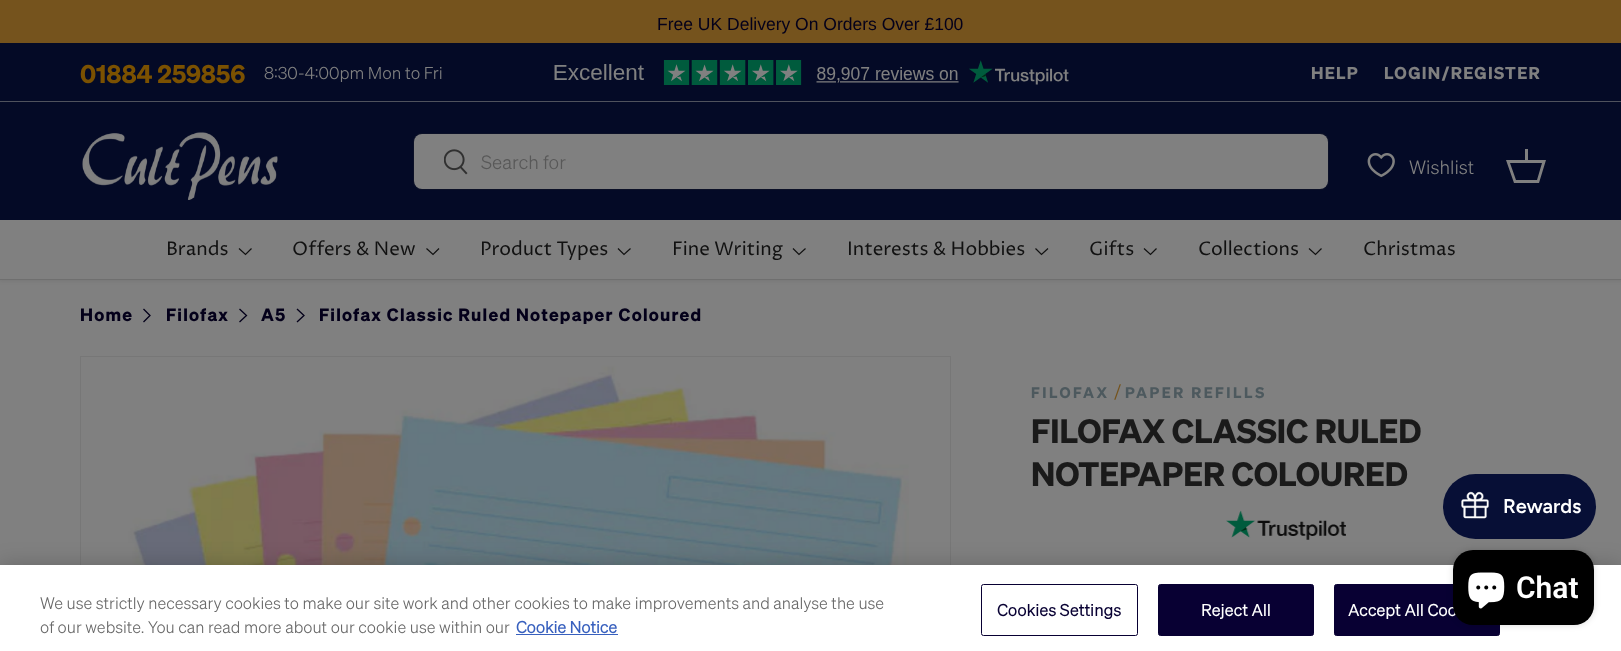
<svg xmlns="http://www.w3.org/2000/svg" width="1621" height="651">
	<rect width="100%" height="100%" fill="#808080" />
	<rect x="0" y="0" width="1621" height="43" fill="#75531D" />
	<text x="657" y="30" font-family="Liberation Sans" font-size="17.5" fill="#04001A">Free UK Delivery On Orders Over £100</text>
	<rect x="-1" y="101" width="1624" height="180" fill="#000000" fill-opacity="0.08" filter="blur(2px)" />
	<rect x="0" y="43" width="1621" height="177" fill="#040A26" />
	<rect x="0" y="101" width="1621" height="1" fill="#4F525D" />
	<text x="80" y="83" font-family="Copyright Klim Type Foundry" font-size="25" font-weight="700" fill="#7B5101">01884 259856</text>
	<text x="264" y="79" font-family="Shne" font-size="16.9" font-weight="300" fill="#808080">8:30-4:00pm Mon to Fri</text>
	<image x="554" y="60" width="515" height="25" href="assets/img1.png" />
	<g font-family="Copyright Klim Type Foundry" font-size="16.9" font-weight="700" letter-spacing="1.25" fill="#808080">
		<text x="1311" y="79">HELP</text>
		<text x="1384" y="79">LOGIN/REGISTER</text>
	</g>
	<image x="82" y="132" width="196" height="68" href="assets/img2.png" />
	<rect x="413.5" y="133.5" width="915" height="56" rx="7.5" fill="none" stroke="#0B1027" />
	<rect x="414" y="134" width="914" height="55" rx="8" fill="#808080" />
	<image x="444" y="149" width="24" height="26" href="assets/img3.png" />
	<text x="481" y="169" font-family="Shne" font-size="18.75" font-weight="300" fill="#585858">Search for</text>
	<image x="1367" y="153" width="28" height="25" href="assets/img4.png" />
	<text x="1409" y="174" font-family="Shne" font-size="18.75" font-weight="300" fill="#808080">Wishlist</text>
	<path d="M1525 160V149H1528V160H1546L1539 183H1514L1506 160ZM1510 163L1516 180H1537L1542 163Z" fill="#808080" />
	<rect x="0" y="220" width="1621" height="59" fill="#808080" />
	<text x="166" y="255" font-family="Proza Libre" font-size="18.75" fill="#111111">Brands</text>
	<path d="M251.5 248.5L245.5 254.5L239 248.5" fill="none" stroke="#111111" stroke-width="1.2" />
	<text x="292" y="255" font-family="Proza Libre" font-size="18.75" fill="#111111">Offers &amp; New</text>
	<path d="M439 248.5L433 254.5L426.5 248.5" fill="none" stroke="#111111" stroke-width="1.2" />
	<text x="480" y="255" font-family="Proza Libre" font-size="18.75" fill="#111111">Product Types</text>
	<path d="M630.5 248.5L624 254.5L618 248.5" fill="none" stroke="#111111" stroke-width="1.2" />
	<text x="672" y="255" font-family="Proza Libre" font-size="18.75" fill="#111111">Fine Writing</text>
	<path d="M805.5 248.5L799 254.5L793 248.5" fill="none" stroke="#111111" stroke-width="1.2" />
	<text x="847" y="255" font-family="Proza Libre" font-size="18.75" fill="#111111">Interests &amp; Hobbies</text>
	<path d="M1048 248.5L1041.5 254.5L1035.5 248.5" fill="none" stroke="#111111" stroke-width="1.2" />
	<text x="1089" y="255" font-family="Proza Libre" font-size="18.75" fill="#111111">Gifts</text>
	<path d="M1156.5 248.5L1150.5 254.5L1144 248.5" fill="none" stroke="#111111" stroke-width="1.2" />
	<text x="1198" y="255" font-family="Proza Libre" font-size="18.75" fill="#111111">Collections</text>
	<path d="M1321.5 248.5L1315.5 254.5L1309 248.5" fill="none" stroke="#111111" stroke-width="1.2" />
	<text x="1363" y="255" font-family="Proza Libre" font-size="18.75" fill="#111111">Christmas</text>
	<rect x="0" y="279" width="1621" height="1" fill="#6F6F6F" />
	<text x="80" y="321" font-family="Copyright Klim Type Foundry" font-size="17.5" font-weight="700" letter-spacing="1.25" fill="#04001A">Home</text>
	<path d="M143.5 309L150 315.5L143.5 322" fill="none" stroke="#04001A" stroke-width="1.3" />
	<text x="166" y="321" font-family="Copyright Klim Type Foundry" font-size="17.5" font-weight="700" letter-spacing="1.25" fill="#04001A">Filofax</text>
	<path d="M239.5 309L246.5 315.5L239.5 322" fill="none" stroke="#04001A" stroke-width="1.3" />
	<text x="261" y="321" font-family="Copyright Klim Type Foundry" font-size="17.5" font-weight="700" letter-spacing="1.25" fill="#04001A">A5</text>
	<path d="M297 309L304 315.5L297 322" fill="none" stroke="#04001A" stroke-width="1.3" />
	<text x="319" y="321" font-family="Copyright Klim Type Foundry" font-size="17.5" font-weight="700" letter-spacing="1.25" fill="#04001A">Filofax Classic Ruled Notepaper Coloured</text>
	<rect x="80.5" y="356.5" width="870" height="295" fill="none" stroke="#777777" />
	<image x="81" y="357" width="869" height="208" href="assets/img5.png" />
	<text x="1031" y="398" font-family="Copyright Klim Type Foundry" font-size="15" font-weight="700" letter-spacing="2.5" fill="#4D595E">FILOFAX</text>
	<text x="1114" y="398" font-family="Shne" font-size="18.75" font-weight="300" fill="#75531D">/</text>
	<text x="1125" y="398" font-family="Copyright Klim Type Foundry" font-size="15" font-weight="700" letter-spacing="2.5" fill="#4D595E">PAPER REFILLS</text>
	<g font-family="Copyright Klim Type Foundry" font-size="33" font-weight="700" fill="#1A1A1A">
		<text x="1031" y="443">FILOFAX CLASSIC RULED</text>
		<text x="1031" y="486">NOTEPAPER COLOURED</text>
	</g>
	<image x="1226" y="510" width="120" height="30" href="assets/img6.png" />
	<rect x="0" y="565" width="1621" height="86" fill="#000000" fill-opacity="0.2" filter="blur(11px)" />
	<rect x="1443" y="474" width="153" height="65" rx="32.5" fill="#070F36" />
	<image x="1461" y="491" width="28" height="28" href="assets/img7.png" />
	<text x="1503" y="513" font-family="Figtree" font-size="20" font-weight="600" fill="#FFFFFF">Rewards</text>
	<rect x="0" y="565" width="1621" height="86" fill="#FFFFFF" />
	<rect x="1334.5" y="584.5" width="165" height="51" rx="2" fill="#080033" stroke="#080033" />
	<rect x="1453" y="550" width="141" height="75" rx="20" fill="#000000" fill-opacity="0.15" filter="blur(3px)" />
	<text x="1348" y="616" font-family="Shne" font-size="16.25" font-weight="700" letter-spacing="0.2" fill="#FFFFFF">Accept All Coo</text>
	<rect x="1453" y="550" width="141" height="75" rx="20" fill="#000000" />
	<image x="1468" y="572" width="37" height="37" href="assets/img8.png" />
	<text x="1516" y="598" font-family="Roboto" font-size="30" font-weight="600" fill="#FFFFFF">Chat</text>
	<g font-family="Shne" font-size="16.25" font-weight="300" fill="#696969">
		<text x="40" y="609">We use strictly necessary cookies to make our site work and other cookies to make improvements and analyse the use</text>
		<text x="40" y="633">of our website. You can read more about our cookie use within our</text>
	</g>
	<text x="516" y="633" font-family="Shne" font-size="16.25" font-weight="700" fill="#3860BE">Cookie Notice</text>
	<rect x="516" y="634" width="102" height="1" fill="#3860BE" />
	<rect x="981.5" y="584.5" width="156" height="51" rx="2" fill="none" stroke="#080033" />
	<text x="997" y="616" font-family="Shne" font-size="16.25" font-weight="700" letter-spacing="0.2" fill="#080033">Cookies Settings</text>
	<rect x="1158.5" y="584.5" width="155" height="51" rx="2" fill="#080033" stroke="#080033" />
	<text x="1201" y="616" font-family="Shne" font-size="16.25" font-weight="700" letter-spacing="0.2" fill="#FFFFFF">Reject All</text>
</svg>
